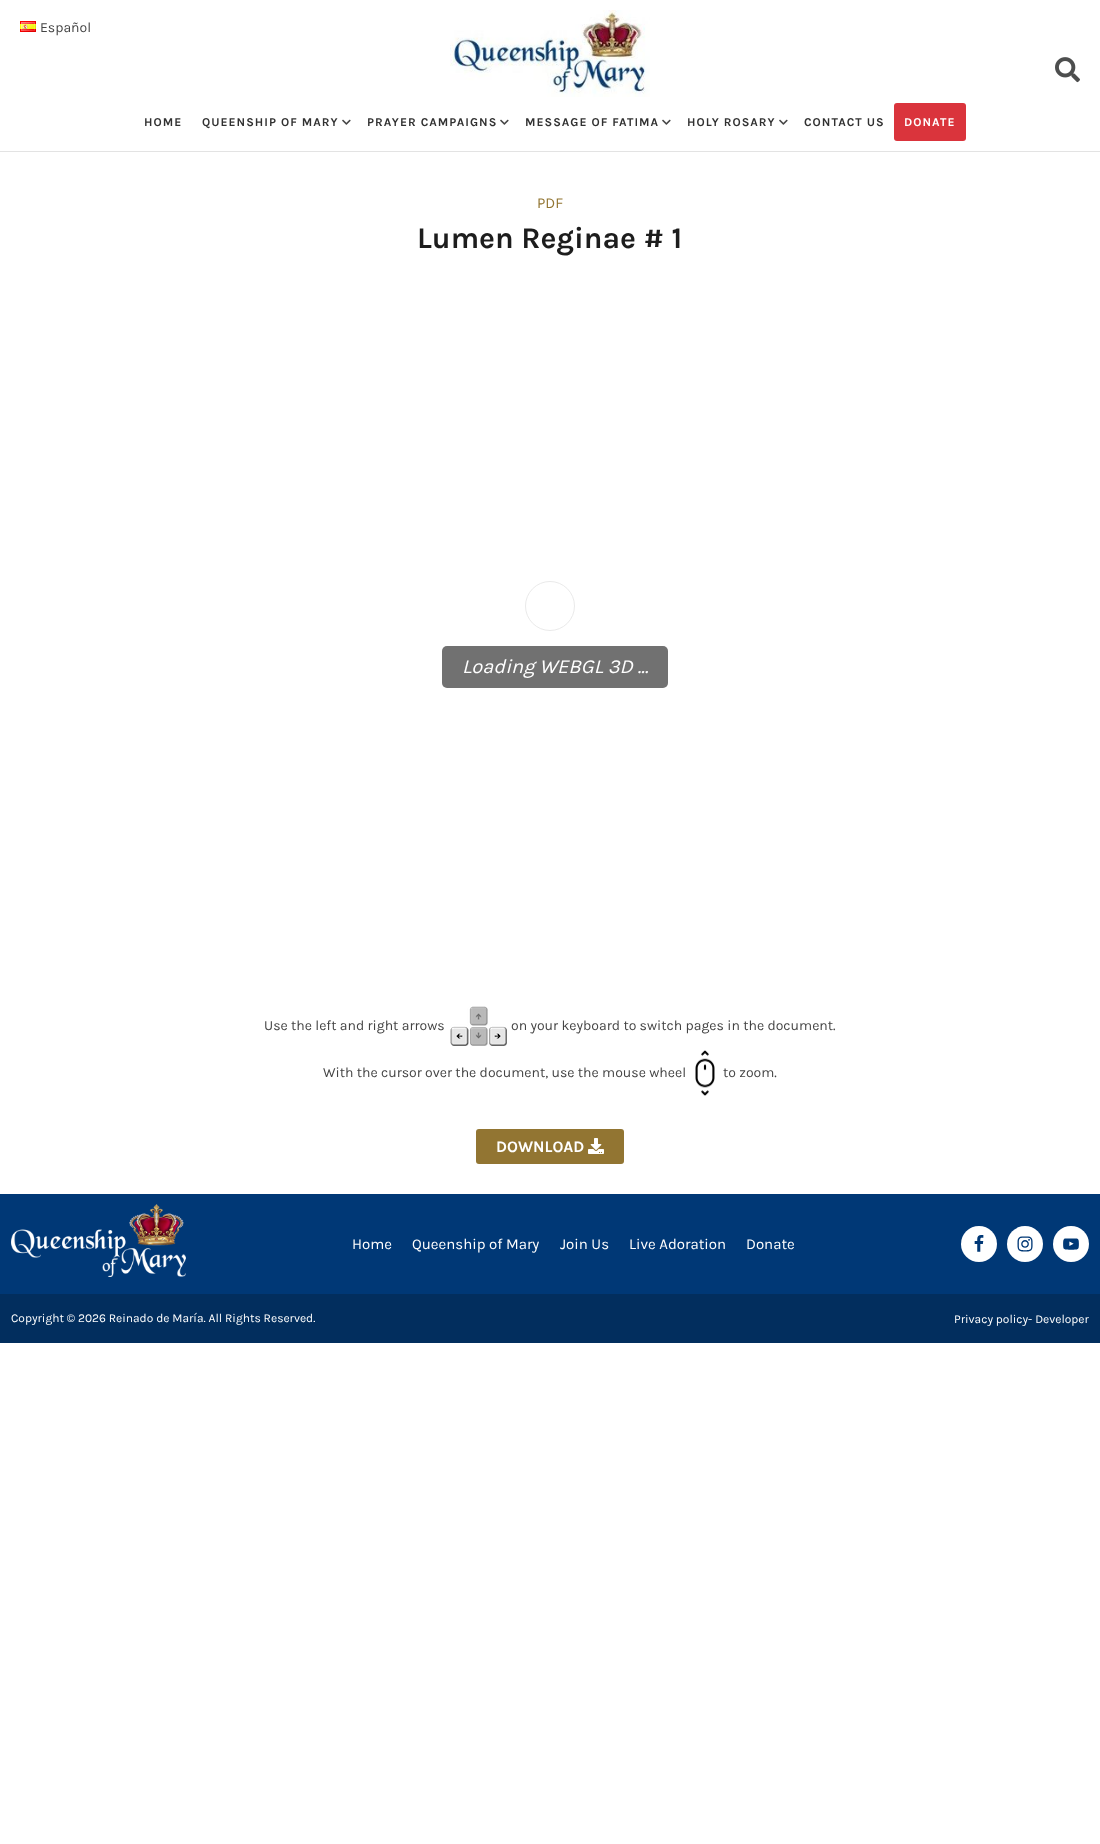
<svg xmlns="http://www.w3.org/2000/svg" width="1100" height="1844">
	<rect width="100%" height="100%" fill="#FFFFFF" />
	<rect x="0" y="151" width="1100" height="1" fill="#E3E3E3" />
	<image x="20" y="21" width="16" height="11" href="assets/img1.png" />
	<text x="40" y="32" font-family="Karla" font-size="14" fill="#444444">Español</text>
	<image x="1055" y="57" width="25" height="26" href="assets/img2.png" />
	<image x="450" y="10" width="200" height="87" href="assets/img3.png" />
	<g font-family="Karla" font-size="12" font-weight="700" letter-spacing="1" fill="#313131">
		<text x="144" y="126">HOME</text>
		<text x="202" y="126">QUEENSHIP OF MARY</text>
	</g>
	<image x="342" y="119" width="9" height="6" href="assets/img4.png" />
	<text x="367" y="126" font-family="Karla" font-size="12" font-weight="700" letter-spacing="1" fill="#313131">PRAYER CAMPAIGNS</text>
	<image x="500" y="119" width="9" height="6" href="assets/img4.png" />
	<text x="525" y="126" font-family="Karla" font-size="12" font-weight="700" letter-spacing="1" fill="#313131">MESSAGE OF FATIMA</text>
	<image x="662" y="119" width="9" height="6" href="assets/img4.png" />
	<text x="687" y="126" font-family="Karla" font-size="12" font-weight="700" letter-spacing="1" fill="#313131">HOLY ROSARY</text>
	<image x="779" y="119" width="9" height="6" href="assets/img4.png" />
	<text x="804" y="126" font-family="Karla" font-size="12" font-weight="700" letter-spacing="1" fill="#313131">CONTACT US</text>
	<rect x="894" y="103" width="72" height="38" rx="3" fill="#DA343C" />
	<text x="904" y="126" font-family="Karla" font-size="12" font-weight="700" letter-spacing="1" fill="#FFFFFF">DONATE</text>
	<text x="537" y="208" font-family="Karla" font-size="15" fill="#927532">PDF</text>
	<text x="417" y="248" font-family="Karla" font-size="30" font-weight="700" fill="#1D1D1D">Lumen Reginae # 1</text>
	<circle cx="550" cy="606" r="24.5" fill="none" stroke="#EAEAEA" />
	<rect x="442" y="646" width="226" height="42" rx="5" fill="#717171" />
	<text x="462" y="673" font-family="Karla" font-size="20" font-style="italic" fill="#FFFFFF">Loading WEBGL 3D ...</text>
	<text x="264" y="1030" font-family="Karla" font-size="14" fill="#444444">Use the left and right arrows</text>
	<image x="450" y="1006" width="57" height="40" href="assets/img5.png" />
	<g font-family="Karla" font-size="14" fill="#444444">
		<text x="511" y="1030">on your keyboard to switch pages in the document.</text>
		<text x="323" y="1077">With the cursor over the document, use the mouse wheel</text>
	</g>
	<image x="695" y="1050" width="20" height="46" href="assets/img6.png" />
	<text x="723" y="1077" font-family="Karla" font-size="14" fill="#444444">to zoom.</text>
	<rect x="476" y="1129" width="148" height="35" rx="3" fill="#927532" />
	<text x="496" y="1152" font-family="Karla" font-size="16" font-weight="700" fill="#FFFFFF">DOWNLOAD</text>
	<image x="588" y="1138" width="16" height="16" href="assets/img7.png" />
	<rect x="0" y="1194" width="1100" height="100" fill="#003876" />
	<image x="11" y="1204" width="175" height="73" href="assets/img8.png" />
	<g font-family="Karla" font-size="15" fill="#FFFFFF">
		<text x="352" y="1249">Home</text>
		<text x="412" y="1249">Queenship of Mary</text>
		<text x="560" y="1249">Join Us</text>
		<text x="629" y="1249">Live Adoration</text>
		<text x="746" y="1249">Donate</text>
	</g>
	<circle cx="979" cy="1244" r="18" fill="#FFFFFF" />
	<image x="974" y="1235" width="10" height="17" href="assets/img9.png" />
	<circle cx="1025" cy="1244" r="18" fill="#FFFFFF" />
	<image x="1017" y="1236" width="16" height="16" href="assets/img10.png" />
	<circle cx="1071" cy="1244" r="18" fill="#FFFFFF" />
	<image x="1063" y="1238" width="16" height="12" href="assets/img11.png" />
	<rect x="0" y="1294" width="1100" height="49" fill="#022E5E" />
	<g font-family="Karla" font-size="12" fill="#FFFFFF">
		<text x="11" y="1322">Copyright © 2026 Reinado de María. All Rights Reserved.</text>
		<text x="954" y="1323">Privacy policy- Developer</text>
	</g>
</svg>
